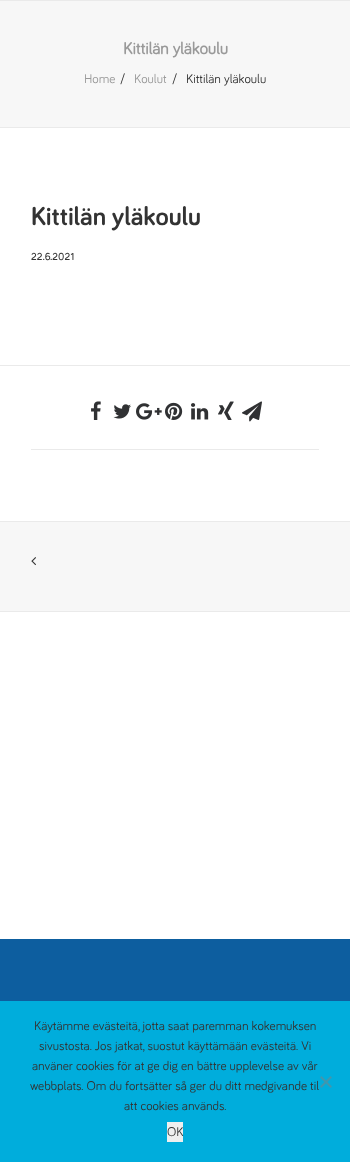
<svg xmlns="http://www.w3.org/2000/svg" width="350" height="1162">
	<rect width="100%" height="100%" fill="#FFFFFF" />
	<rect x="0" y="1" width="350" height="126" fill="#F7F7F7" />
	<rect x="0" y="0" width="350" height="1" fill="#EAEAEA" />
	<rect x="0" y="127" width="350" height="1" fill="#EAEAEA" />
	<text x="123" y="54" font-family="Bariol" font-size="17" font-weight="700" fill="#999999">Kittilän yläkoulu</text>
	<text x="84" y="83" font-family="Bariol" font-size="13" fill="#999999">Home</text>
	<text x="120" y="83" font-family="Bariol" font-size="13" fill="#333333">/</text>
	<text x="134" y="83" font-family="Bariol" font-size="13" fill="#999999">Koulut</text>
	<g font-family="Bariol" font-size="13" fill="#333333">
		<text x="172" y="83">/</text>
		<text x="186" y="83">Kittilän yläkoulu</text>
	</g>
	<text x="31" y="225" font-family="'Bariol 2'" font-size="26.75" font-weight="700" fill="#333333">Kittilän yläkoulu</text>
	<text x="31" y="260" font-family="Bariol" font-size="10" font-weight="700" letter-spacing="0.5" fill="#333333">22.6.2021</text>
	<rect x="0" y="365" width="350" height="1" fill="#EAEAEA" />
	<rect x="31" y="449" width="288" height="1" fill="#EAEAEA" />
	<image x="91" y="401" width="10" height="19" href="assets/img1.png" />
	<image x="113" y="404" width="18" height="15" href="assets/img2.png" />
	<image x="136" y="403" width="26" height="17" href="assets/img3.png" />
	<image x="165" y="402" width="18" height="18" href="assets/img4.png" />
	<image x="191" y="403" width="18" height="17" href="assets/img5.png" />
	<image x="218" y="401" width="16" height="19" href="assets/img6.png" />
	<image x="242" y="401" width="20" height="21" href="assets/img7.png" />
	<rect x="-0.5" y="521.5" width="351" height="90" fill="#F7F7F7" stroke="#EAEAEA" />
	<image x="31" y="557" width="5" height="9" href="assets/img8.png" />
	<rect x="0" y="939" width="350" height="62" fill="#0D5E9F" />
	<rect x="0" y="1001" width="350" height="161" fill="#00ADDC" />
	<g font-family="Bariol" font-size="13" fill="#333333">
		<text x="34" y="1030">Käytämme evästeitä, jotta saat paremman kokemuksen</text>
		<text x="39" y="1050">sivustosta. Jos jatkat, suostut käyttämään evästeitä. Vi</text>
		<text x="32" y="1070">använer cookies för at ge dig en bättre upplevelse av vår</text>
		<text x="30" y="1090">webbplats. Om du fortsätter så ger du ditt medgivande til</text>
		<text x="124" y="1110">att cookies används.</text>
	</g>
	<path d="M330.5 1076L332 1077.5L321.5 1088L320 1086.5Z" fill="#4097AE" />
	<path d="M320 1077.5L321.5 1076L332 1086.5L330.5 1088Z" fill="#4097AE" />
	<rect x="167" y="1122" width="16" height="20" fill="#EFEFEF" />
	<text x="167" y="1136" font-family="Bariol" font-size="13" fill="#333333">OK</text>
</svg>
